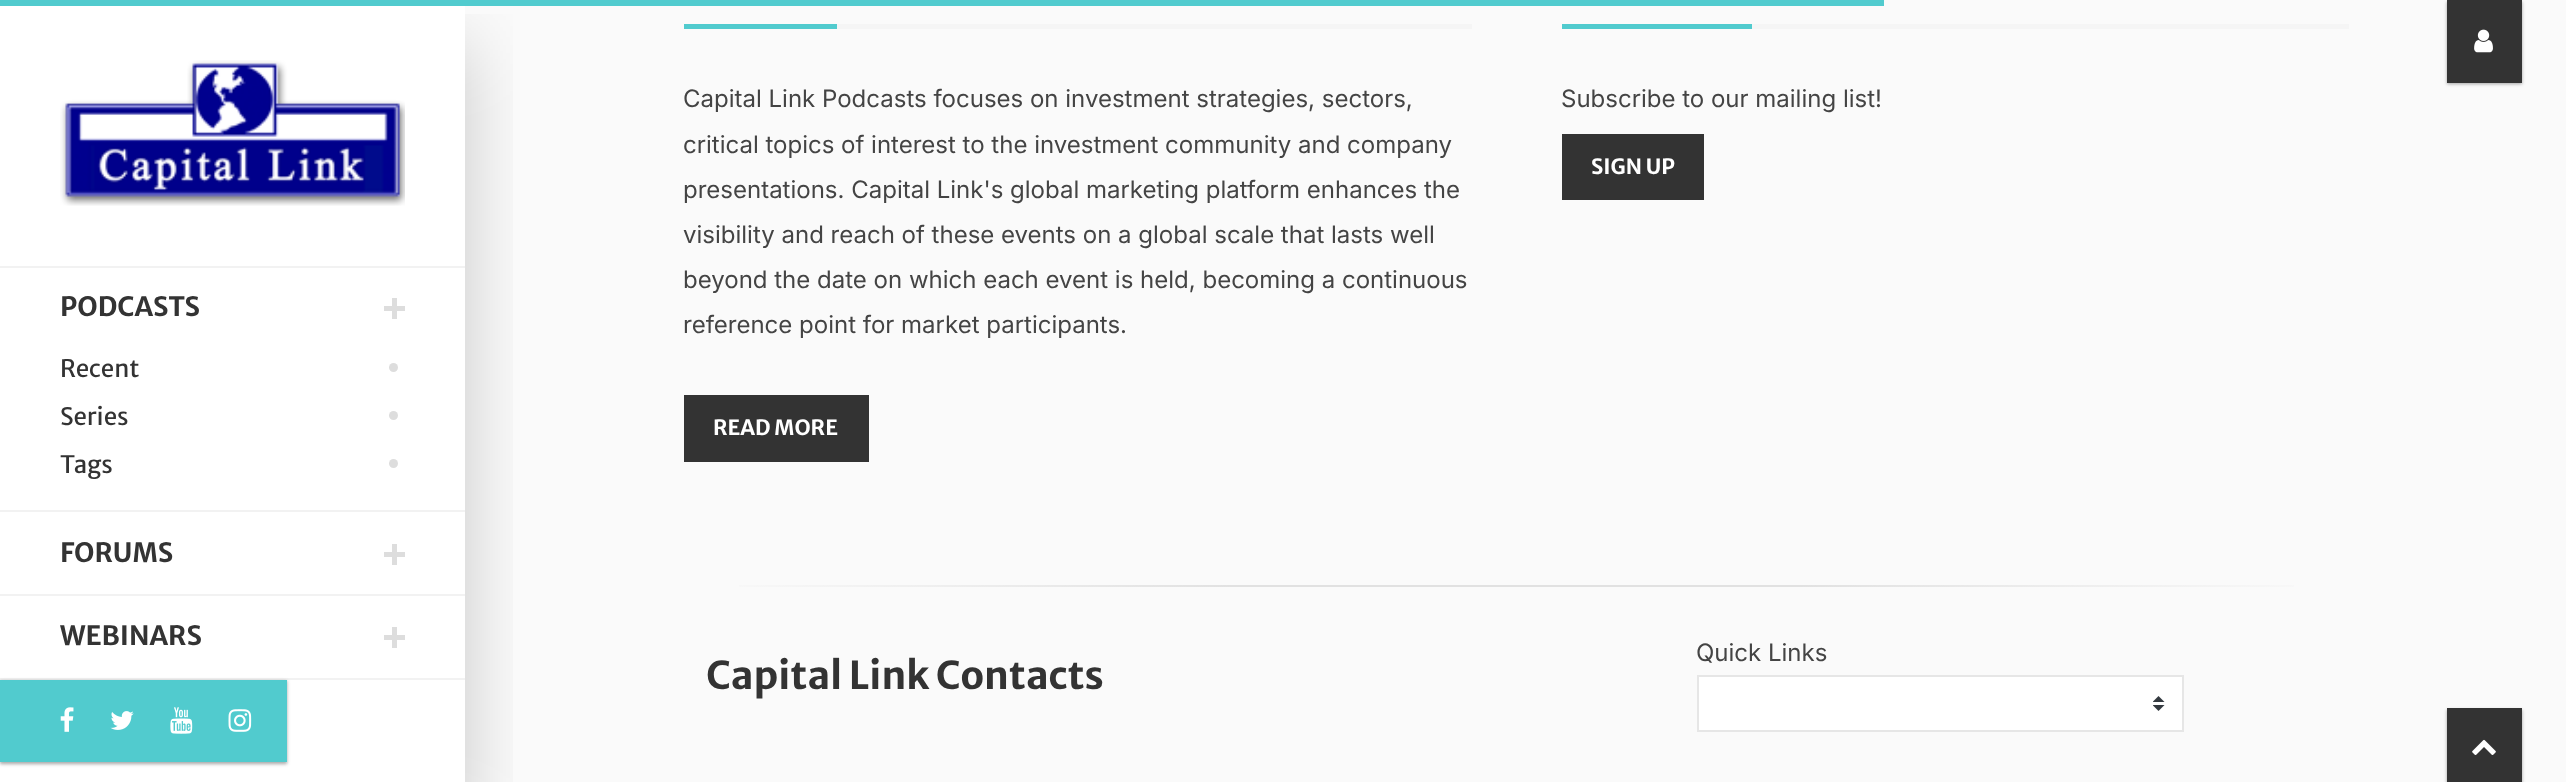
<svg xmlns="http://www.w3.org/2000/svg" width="2566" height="782">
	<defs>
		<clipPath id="clip1"><rect x="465" y="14" width="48" height="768" /></clipPath>
		<linearGradient id="g1" gradientUnits="userSpaceOnUse" x1="684" y1="586" x2="2349" y2="586"><stop offset="0" stop-color="#FAFAFA" /><stop offset="0.33" stop-color="#E1E1E1" /><stop offset="0.67" stop-color="#E1E1E1" /><stop offset="1" stop-color="#FAFAFA" /></linearGradient>
	</defs>
	<rect width="100%" height="100%" fill="#FFFFFF" />
	<rect x="465" y="0" width="2101" height="782" fill="#FAFAFA" />
	<g clip-path="url(#clip1)">
		<rect x="0" y="45" width="465" height="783" fill="#010101" fill-opacity="0.2" filter="blur(37.5px)" />
	</g>
	<rect x="0" y="0" width="1884" height="6" fill="#51CBCE" />
	<rect x="2447" y="2" width="75" height="82" fill="#000000" fill-opacity="0.24" filter="blur(1.5px)" />
	<rect x="2447" y="2" width="75" height="82" fill="#000000" fill-opacity="0.12" filter="blur(2px)" />
	<rect x="2447" y="0" width="75" height="83" fill="#333333" />
	<image x="2474" y="29" width="19" height="24" href="assets/img1.png" />
	<rect x="0" y="266" width="465" height="2" fill="#F2F2F2" />
	<image x="60" y="60" width="345" height="146" href="assets/img2.png" />
	<rect x="0" y="510" width="465" height="2" fill="#F2F2F2" />
	<text x="60" y="316" font-family="Merriweather Sans" font-size="26.5" font-weight="700" fill="#333333">PODCASTS</text>
	<rect x="384" y="306" width="21" height="5" fill="#DDDDDD" />
	<rect x="392" y="298" width="5" height="21" fill="#DDDDDD" />
	<text x="60" y="377" font-family="Merriweather Sans" font-size="24" fill="#333333">Recent</text>
	<circle cx="393.5" cy="367.5" r="4.5" fill="#DDDDDD" />
	<text x="60" y="425" font-family="Merriweather Sans" font-size="24" fill="#333333">Series</text>
	<circle cx="393.5" cy="415.5" r="4.5" fill="#DDDDDD" />
	<text x="60" y="473" font-family="Merriweather Sans" font-size="24" fill="#333333">Tags</text>
	<circle cx="393.5" cy="463.5" r="4.5" fill="#DDDDDD" />
	<rect x="0" y="594" width="465" height="2" fill="#F2F2F2" />
	<text x="60" y="562" font-family="Merriweather Sans" font-size="26.5" font-weight="700" fill="#333333">FORUMS</text>
	<rect x="384" y="552" width="21" height="5" fill="#DDDDDD" />
	<rect x="392" y="544" width="5" height="21" fill="#DDDDDD" />
	<rect x="0" y="678" width="465" height="2" fill="#F2F2F2" />
	<text x="60" y="645" font-family="Merriweather Sans" font-size="26.5" font-weight="700" fill="#333333">WEBINARS</text>
	<rect x="384" y="635" width="21" height="5" fill="#DDDDDD" />
	<rect x="392" y="627" width="5" height="21" fill="#DDDDDD" />
	<rect x="0" y="681" width="287" height="83" fill="#000000" fill-opacity="0.24" filter="blur(1.5px)" />
	<rect x="0" y="681" width="287" height="83" fill="#000000" fill-opacity="0.12" filter="blur(2px)" />
	<rect x="0" y="680" width="287" height="82" fill="#51CBCE" />
	<image x="60" y="707" width="14" height="25" href="assets/img3.png" />
	<image x="110" y="711" width="24" height="19" href="assets/img4.png" />
	<image x="170" y="707" width="23" height="27" href="assets/img5.png" />
	<image x="228" y="709" width="24" height="23" href="assets/img6.png" />
	<rect x="837" y="24" width="635" height="5" fill="#F5F5F5" />
	<rect x="684" y="24" width="153" height="5" fill="#51CBCE" />
	<g font-family="Inter" font-size="24" fill="#444444">
		<text x="683" y="107">Capital Link Podcasts focuses on investment strategies, sectors,</text>
		<text x="683" y="153">critical topics of interest to the investment community and company</text>
		<text x="683" y="198">presentations. Capital Link's global marketing platform enhances the</text>
		<text x="683" y="243">visibility and reach of these events on a global scale that lasts well</text>
		<text x="683" y="288">beyond the date on which each event is held, becoming a continuous</text>
		<text x="683" y="333">reference point for market participants.</text>
	</g>
	<rect x="684" y="395" width="185" height="67" fill="#333333" />
	<text x="713" y="435" font-family="Merriweather Sans" font-size="21" font-weight="700" fill="#FFFFFF">READ MORE</text>
	<rect x="1752" y="24" width="597" height="5" fill="#F5F5F5" />
	<rect x="1562" y="24" width="190" height="5" fill="#51CBCE" />
	<text x="1561" y="107" font-family="Inter" font-size="24" fill="#444444">Subscribe to our mailing list!</text>
	<rect x="1562" y="134" width="142" height="66" fill="#333333" />
	<text x="1591" y="174" font-family="Merriweather Sans" font-size="21" font-weight="700" fill="#FFFFFF">SIGN UP</text>
	<rect x="739" y="585" width="1555" height="2" fill="url(#g1)" />
	<text x="1696" y="661" font-family="Inter" font-size="24" fill="#444444">Quick Links</text>
	<rect x="1699" y="677" width="483" height="53" fill="#FFFFFF" />
	<image x="2153" y="696" width="12" height="15" href="assets/img7.png" />
	<rect x="1698" y="676" width="485" height="55" fill="none" stroke="#E6E6E6" stroke-width="2" />
	<text x="706" y="689" font-family="Merriweather Sans" font-size="38.4" font-weight="700" fill="#333333">Capital Link Contacts</text>
	<rect x="2447" y="710" width="75" height="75" fill="#000000" fill-opacity="0.24" filter="blur(1.5px)" />
	<rect x="2447" y="710" width="75" height="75" fill="#000000" fill-opacity="0.12" filter="blur(2px)" />
	<rect x="2447" y="708" width="75" height="74" fill="#333333" />
	<image x="2472" y="739" width="24" height="16" href="assets/img8.png" />
</svg>
